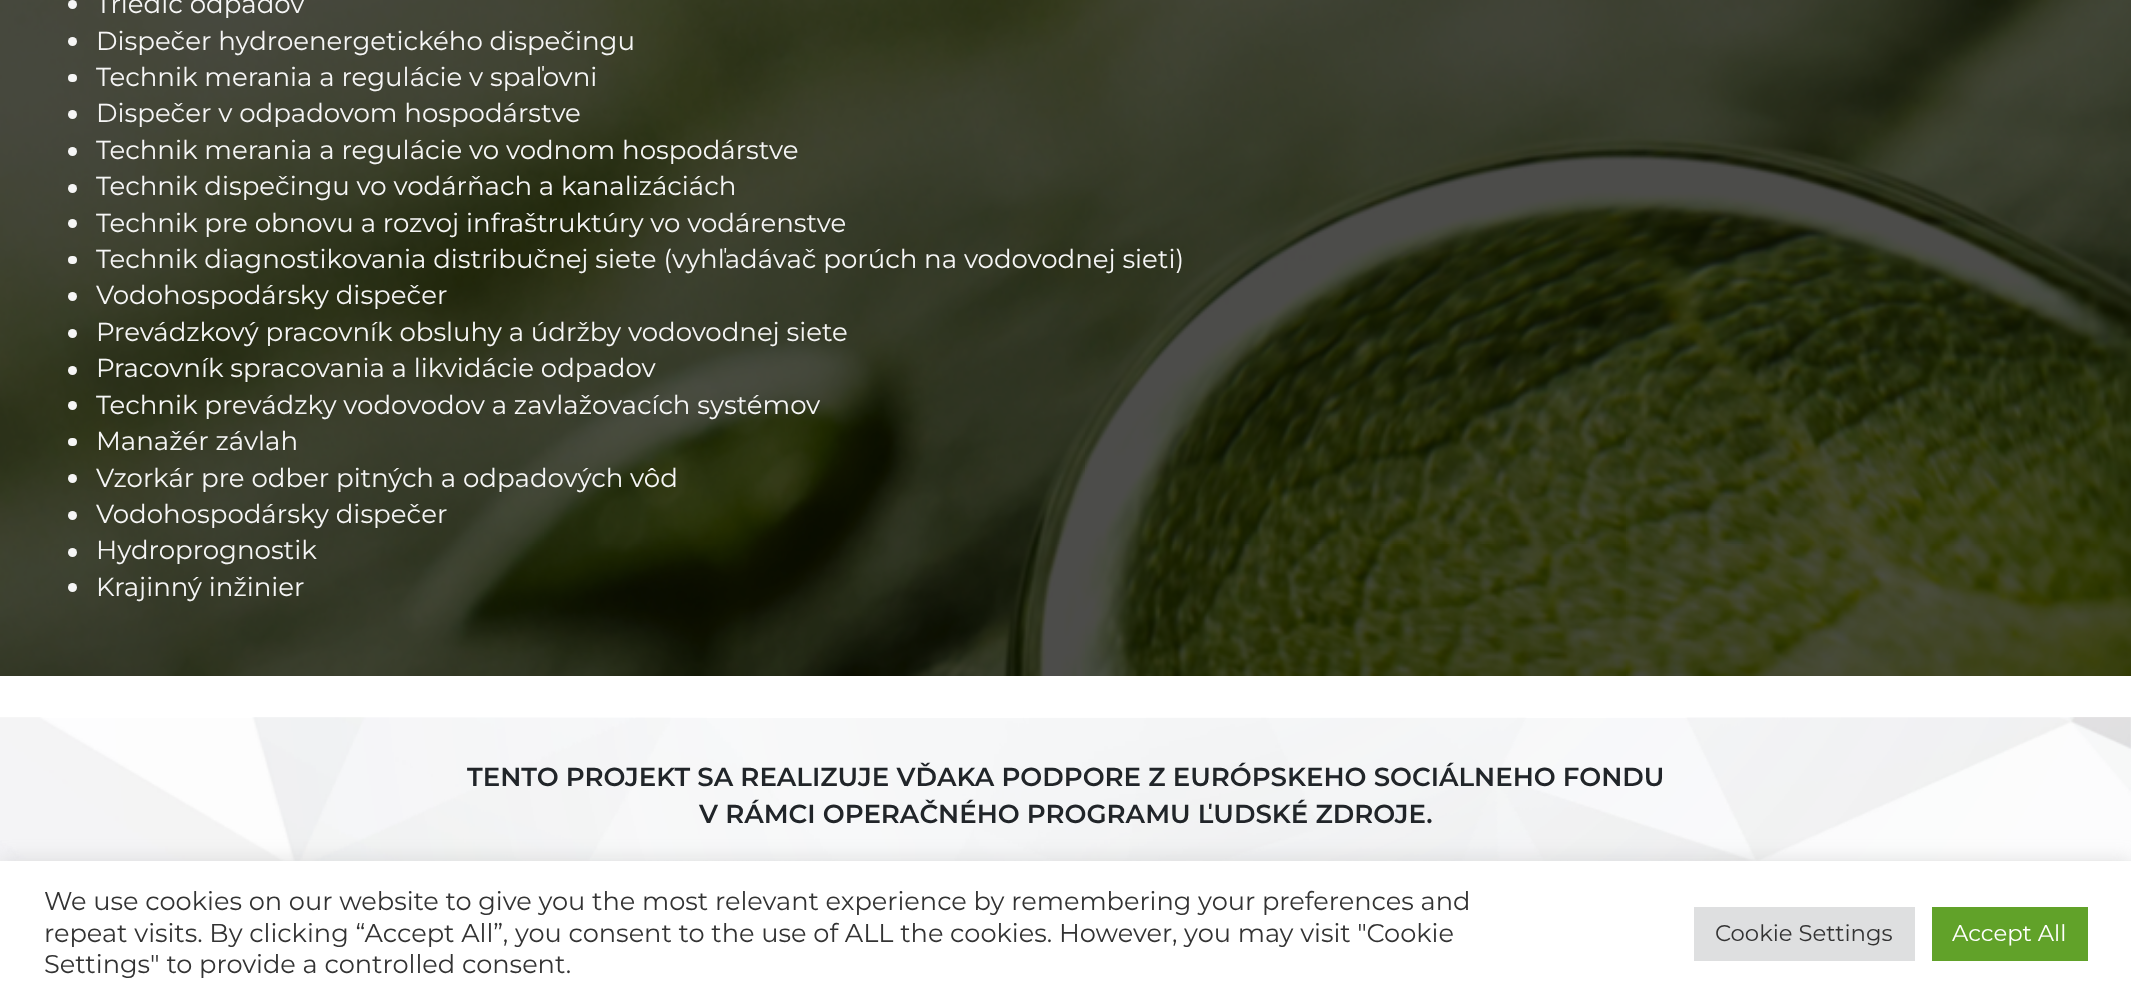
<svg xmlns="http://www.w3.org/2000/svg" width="2131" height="1003">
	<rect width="100%" height="100%" fill="#FFFFFF" />
	<image x="0" y="0" width="2131" height="676" href="assets/img1.png" />
	<circle cx="72.5" cy="4.5" r="4.5" fill="#F6F6F6" />
	<text x="96" y="13" font-family="Montserrat" font-size="26.05" fill="#F6F6F6">Triedič odpadov</text>
	<circle cx="72.5" cy="41.5" r="4.5" fill="#F6F6F6" />
	<text x="96" y="50" font-family="Montserrat" font-size="26.05" fill="#F6F6F6">Dispečer hydroenergetického dispečingu</text>
	<rect x="68" y="74" width="9" height="8" rx="4" fill="#F6F6F6" />
	<text x="96" y="86" font-family="Montserrat" font-size="26.05" fill="#F6F6F6">Technik merania a regulácie v spaľovni</text>
	<circle cx="72.5" cy="114.5" r="4.5" fill="#F6F6F6" />
	<text x="96" y="122" font-family="Montserrat" font-size="26.05" fill="#F6F6F6">Dispečer v odpadovom hospodárstve</text>
	<circle cx="72.5" cy="151.5" r="4.5" fill="#F6F6F6" />
	<text x="96" y="159" font-family="Montserrat" font-size="26.05" fill="#F6F6F6">Technik merania a regulácie vo vodnom hospodárstve</text>
	<circle cx="72.5" cy="188.5" r="4.5" fill="#F6F6F6" />
	<text x="96" y="195" font-family="Montserrat" font-size="26.05" fill="#F6F6F6">Technik dispečingu vo vodárňach a kanalizáciách</text>
	<circle cx="72.5" cy="223.5" r="4.5" fill="#F6F6F6" />
	<text x="96" y="232" font-family="Montserrat" font-size="26.05" fill="#F6F6F6">Technik pre obnovu a rozvoj infraštruktúry vo vodárenstve</text>
	<rect x="68" y="256" width="9" height="8" rx="4" fill="#F6F6F6" />
	<text x="96" y="268" font-family="Montserrat" font-size="26.05" fill="#F6F6F6">Technik diagnostikovania distribučnej siete (vyhľadávač porúch na vodovodnej sieti)</text>
	<circle cx="72.5" cy="296.5" r="4.5" fill="#F6F6F6" />
	<text x="96" y="304" font-family="Montserrat" font-size="26.05" fill="#F6F6F6">Vodohospodársky dispečer</text>
	<circle cx="72.5" cy="333.5" r="4.5" fill="#F6F6F6" />
	<text x="96" y="341" font-family="Montserrat" font-size="26.05" fill="#F6F6F6">Prevádzkový pracovník obsluhy a údržby vodovodnej siete</text>
	<circle cx="72.5" cy="370.5" r="4.5" fill="#F6F6F6" />
	<text x="96" y="377" font-family="Montserrat" font-size="26.05" fill="#F6F6F6">Pracovník spracovania a likvidácie odpadov</text>
	<circle cx="72.5" cy="405.5" r="4.5" fill="#F6F6F6" />
	<text x="96" y="414" font-family="Montserrat" font-size="26.05" fill="#F6F6F6">Technik prevádzky vodovodov a zavlažovacích systémov</text>
	<rect x="68" y="438" width="9" height="8" rx="4" fill="#F6F6F6" />
	<text x="96" y="450" font-family="Montserrat" font-size="26.05" fill="#F6F6F6">Manažér závlah</text>
	<circle cx="72.5" cy="478.5" r="4.5" fill="#F6F6F6" />
	<text x="96" y="487" font-family="Montserrat" font-size="26.05" fill="#F6F6F6">Vzorkár pre odber pitných a odpadových vôd</text>
	<circle cx="72.5" cy="515.5" r="4.5" fill="#F6F6F6" />
	<text x="96" y="523" font-family="Montserrat" font-size="26.05" fill="#F6F6F6">Vodohospodársky dispečer</text>
	<circle cx="72.5" cy="552.5" r="4.5" fill="#F6F6F6" />
	<text x="96" y="559" font-family="Montserrat" font-size="26.05" fill="#F6F6F6">Hydroprognostik</text>
	<circle cx="72.5" cy="587.5" r="4.5" fill="#F6F6F6" />
	<text x="96" y="596" font-family="Montserrat" font-size="26.05" fill="#F6F6F6">Krajinný inžinier</text>
	<rect x="0" y="718" width="2131" height="143" fill="#F6F7F8" />
	<image x="0" y="717" width="2131" height="144" href="assets/img2.png" />
	<g font-family="Montserrat" font-size="26.05" font-weight="600" fill="#212529">
		<text x="467" y="786">TENTO PROJEKT SA REALIZUJE VĎAKA PODPORE Z EURÓPSKEHO SOCIÁLNEHO FONDU</text>
		<text x="699" y="823">V RÁMCI OPERAČNÉHO PROGRAMU ĽUDSKÉ ZDROJE.</text>
	</g>
	<rect x="0" y="859" width="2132" height="144" fill="#ACABAB" fill-opacity="0.3" filter="blur(9px)" />
	<rect x="0" y="861" width="2131" height="142" fill="#FFFFFF" />
	<g font-family="Montserrat" font-size="25.67" fill="#333333">
		<text x="44" y="910">We use cookies on our website to give you the most relevant experience by remembering your preferences and</text>
		<text x="44" y="942">repeat visits. By clicking “Accept All”, you consent to the use of ALL the cookies. However, you may visit "Cookie</text>
		<text x="44" y="973">Settings" to provide a controlled consent.</text>
	</g>
	<rect x="1694" y="907" width="221" height="54" fill="#DEDFE0" />
	<text x="1715" y="941" font-family="Montserrat" font-size="22.75" fill="#333333">Cookie Settings</text>
	<rect x="1932" y="907" width="156" height="54" fill="#61A229" />
	<text x="1952" y="941" font-family="Montserrat" font-size="22.75" fill="#FFFFFF">Accept All</text>
</svg>
